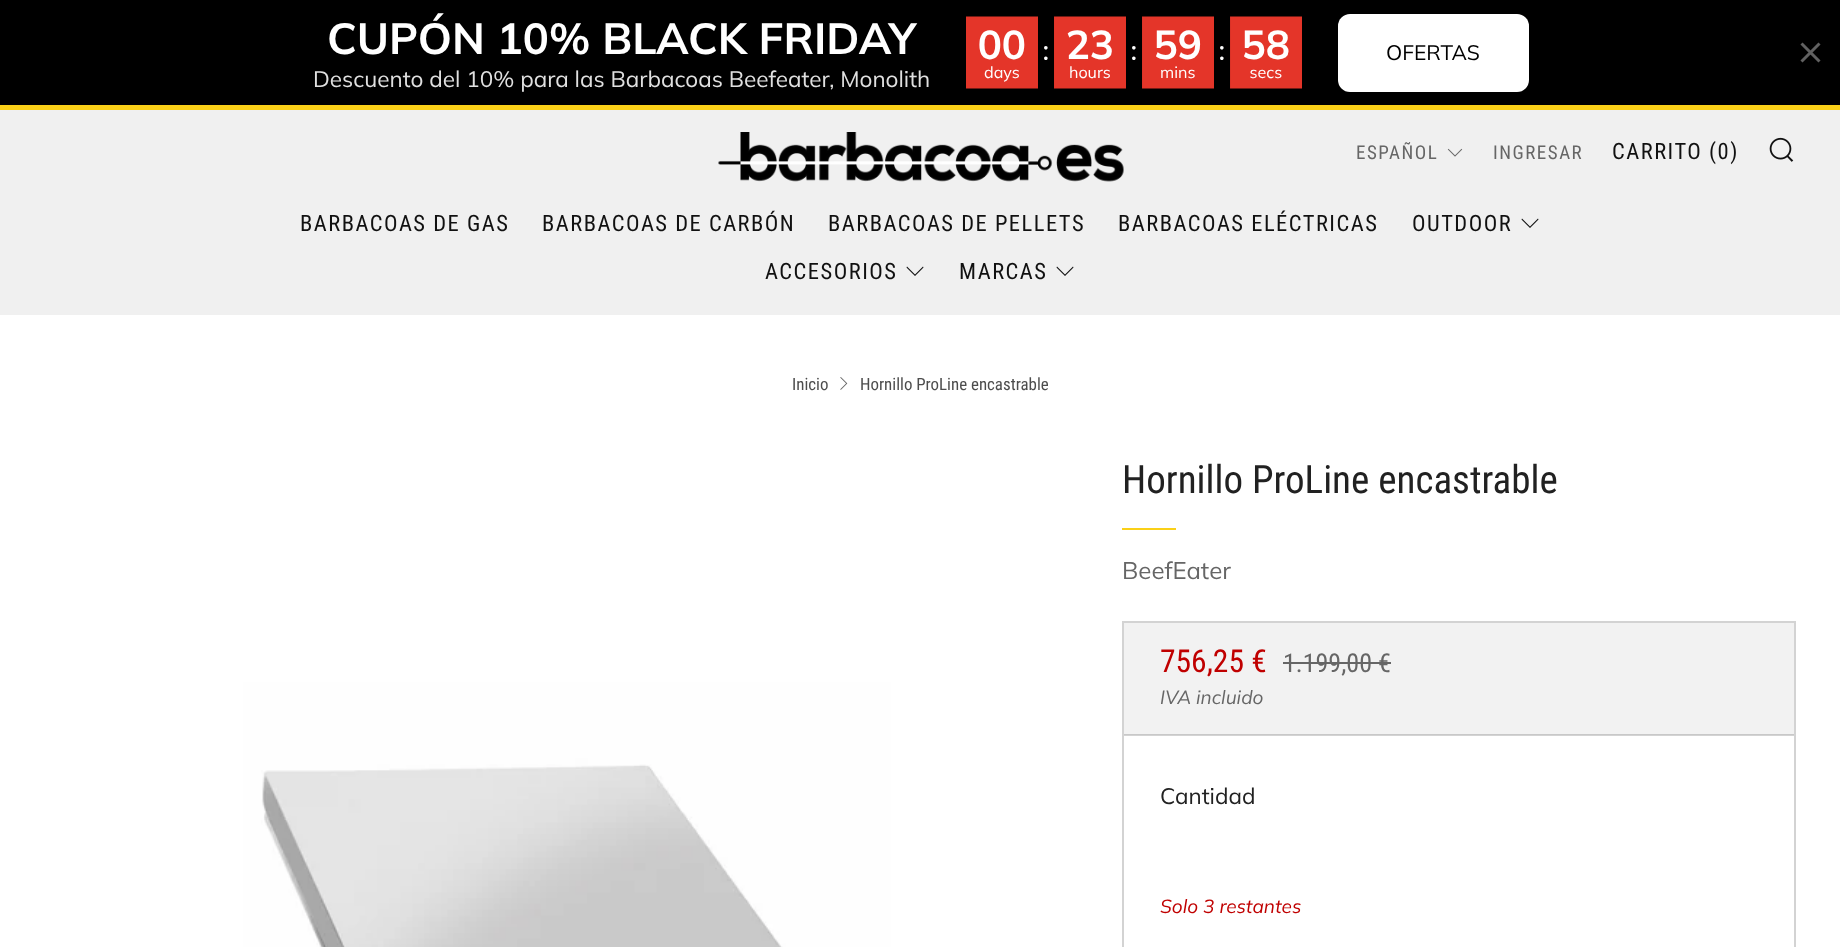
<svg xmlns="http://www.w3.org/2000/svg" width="1840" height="947">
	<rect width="100%" height="100%" fill="#FFFFFF" />
	<rect x="1124" y="735" width="670" height="1" fill="#D3D3D3" />
	<rect x="0" y="0" width="1840" height="105" fill="#000000" />
	<text x="327" y="54" font-family="Muli" font-size="43.5" font-weight="700" fill="#FFFFFF">CUPÓN 10% BLACK FRIDAY</text>
	<text x="313" y="87" font-family="Muli" font-size="22.5" fill="#E0E0E0">Descuento del 10% para las Barbacoas Beefeater, Monolith</text>
	<image x="966" y="16" width="336" height="73" href="assets/img1.png" />
	<rect x="1338" y="14" width="191" height="78" rx="12" fill="#FFFFFF" />
	<text x="1386" y="60" font-family="Muli" font-size="21" fill="#000000">OFERTAS</text>
	<path d="M1819.5 43.5L1801.5 61.5M1819.5 61.5L1801.5 43.5" fill="none" stroke="#616161" stroke-width="3" />
	<rect x="0" y="105" width="1840" height="5" fill="#FAD018" />
	<rect x="0" y="110" width="1840" height="205" fill="#F0F0F0" />
	<image x="718" y="132" width="406" height="50" href="assets/img2.png" />
	<text x="1356" y="159" font-family="Roboto Condensed" font-size="19" letter-spacing="1.5" fill="#666666">ESPAÑOL</text>
	<image x="1447" y="148" width="16" height="9" href="assets/img3.png" />
	<text x="1493" y="159" font-family="Roboto Condensed" font-size="19" letter-spacing="1.5" fill="#666666">INGRESAR</text>
	<text x="1612" y="159" font-family="Roboto Condensed" font-size="22.5" letter-spacing="1.5" fill="#111111">CARRITO (0)</text>
	<image x="1769" y="137" width="25" height="25" href="assets/img4.png" />
	<g font-family="Roboto Condensed" font-size="22.5" letter-spacing="1.5" fill="#111111">
		<text x="300" y="231">BARBACOAS DE GAS</text>
		<text x="542" y="231">BARBACOAS DE CARBÓN</text>
		<text x="828" y="231">BARBACOAS DE PELLETS</text>
		<text x="1118" y="231">BARBACOAS ELÉCTRICAS</text>
		<text x="1412" y="231">OUTDOOR</text>
	</g>
	<path d="M1522 218.5L1521.5 219.5L1530 228L1538.5 219.5L1538 218.5L1530 226.5Z" fill="#111111" />
	<text x="765" y="279" font-family="Roboto Condensed" font-size="22.5" letter-spacing="1.5" fill="#111111">ACCESORIOS</text>
	<path d="M907 266.5L906.5 267.5L915 276L923.5 267.5L923 266.5L915 274.5Z" fill="#111111" />
	<text x="959" y="279" font-family="Roboto Condensed" font-size="22.5" letter-spacing="1.5" fill="#111111">MARCAS</text>
	<path d="M1057 266.5L1056.5 267.5L1065 276L1073.5 267.5L1073 266.5L1065 274.5Z" fill="#111111" />
	<text x="792" y="390" font-family="Roboto Condensed" font-size="16.9" fill="#4D4D4D">Inicio</text>
	<image x="840" y="377" width="8" height="13" href="assets/img5.png" />
	<text x="860" y="390" font-family="Roboto Condensed" font-size="16.9" fill="#4D4D4D">Hornillo ProLine encastrable</text>
	<image x="168" y="450" width="786" height="497" href="assets/img6.png" />
	<text x="1122" y="493" font-family="Roboto Condensed" font-size="39" fill="#212121">Hornillo ProLine encastrable</text>
	<rect x="1122" y="528" width="54" height="2" fill="#FAD018" />
	<text x="1122" y="579" font-family="Muli" font-size="24" fill="#666666">BeefEater</text>
	<rect x="1123" y="622" width="672" height="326" fill="none" stroke="#D3D3D3" stroke-width="2" />
	<rect x="1124" y="623" width="670" height="111" fill="#F2F2F2" />
	<rect x="1124" y="734" width="670" height="1" fill="#C8C8C8" />
	<text x="1160" y="672" font-family="Roboto Condensed" font-size="31.5" fill="#C00000">756,25 €</text>
	<text x="1283" y="672" font-family="Roboto Condensed" font-size="26" fill="#666666">1.199,00 €</text>
	<rect x="1283" y="662" width="108" height="2" fill="#666666" />
	<text x="1160" y="704" font-family="Muli" font-size="19" font-style="italic" fill="#666666">IVA incluido</text>
	<text x="1160" y="804" font-family="Muli" font-size="22.5" fill="#212121">Cantidad</text>
	<text x="1160" y="913" font-family="Muli" font-size="19" font-style="italic" fill="#C00000">Solo 3 restantes</text>
</svg>
